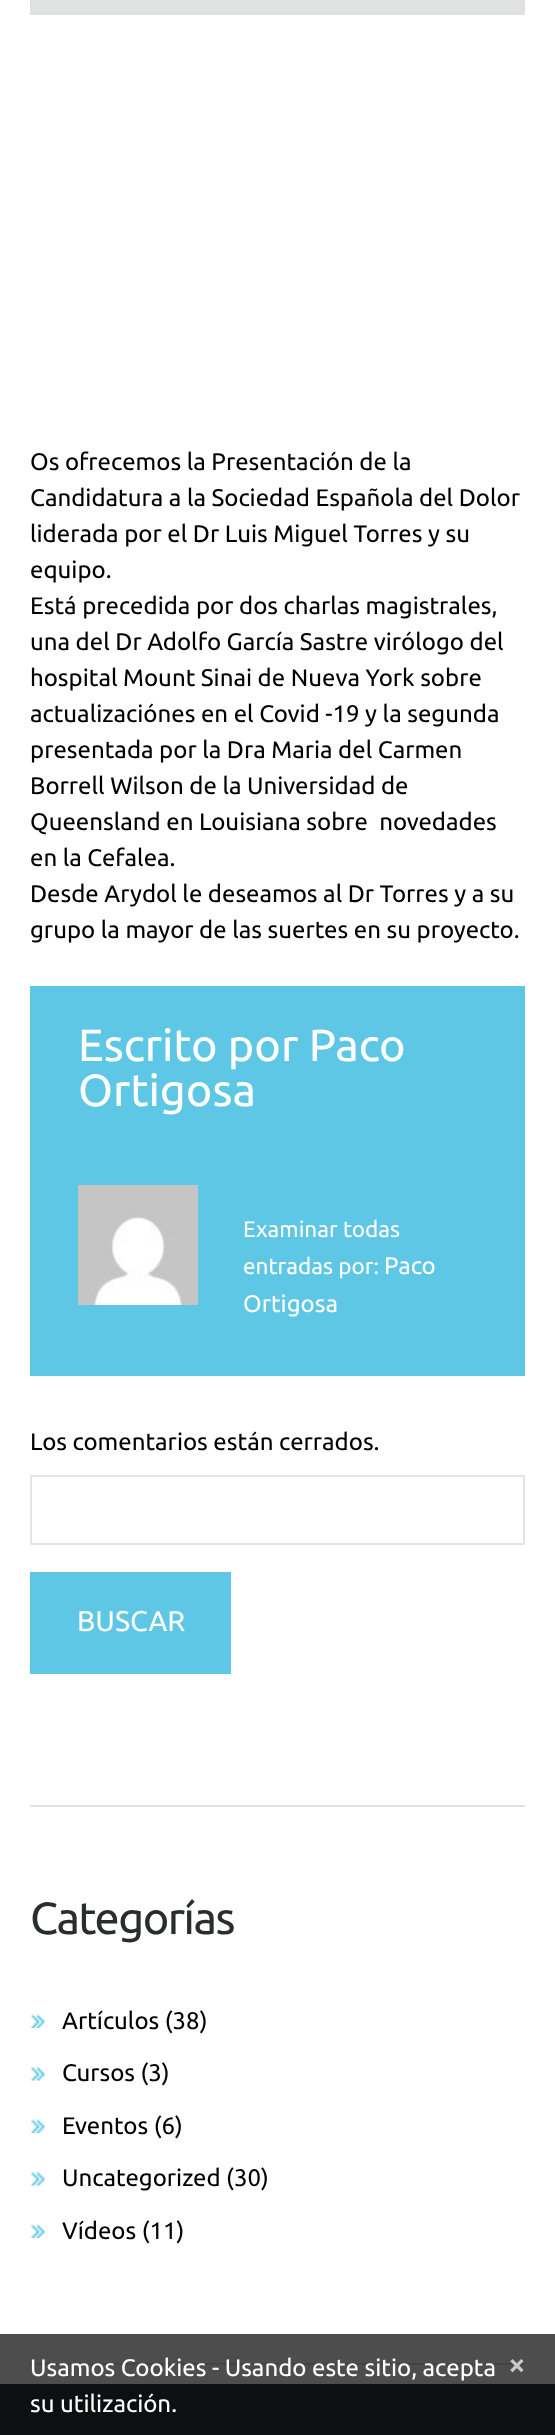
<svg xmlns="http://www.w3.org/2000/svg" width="555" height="2435">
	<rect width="100%" height="100%" fill="#FFFFFF" />
	<rect x="0" y="2334" width="555" height="50" fill="#4D4D4D" />
	<rect x="30" y="0" width="495" height="15" fill="#E0E1E1" />
	<g font-family="Ubuntu" font-size="24" fill="#000000">
		<text x="30" y="470">Os ofrecemos la Presentación de la</text>
		<text x="30" y="506">Candidatura a la Sociedad Española del Dolor</text>
		<text x="30" y="542">liderada por el Dr Luis Miguel Torres y su</text>
		<text x="30" y="578">equipo.</text>
		<text x="30" y="614">Está precedida por dos charlas magistrales,</text>
		<text x="30" y="650">una del Dr Adolfo García Sastre virólogo del</text>
		<text x="30" y="686">hospital Mount Sinai de Nueva York sobre</text>
		<text x="30" y="722">actualizaciónes en el Covid -19 y la segunda</text>
		<text x="30" y="758">presentada por la Dra Maria del Carmen</text>
		<text x="30" y="794">Borrell Wilson de la Universidad de</text>
		<text x="30" y="830" xml:space="preserve">Queensland en Louisiana sobre  novedades</text>
		<text x="30" y="866">en la Cefalea.</text>
		<text x="30" y="902">Desde Arydol le deseamos al Dr Torres y a su</text>
		<text x="30" y="938">grupo la mayor de las suertes en su proyecto.</text>
	</g>
	<rect x="30" y="986" width="495" height="390" fill="#5FC7E6" />
	<g font-family="Ubuntu" font-size="45" fill="#FFFFFF">
		<text x="78" y="1061">Escrito por Paco</text>
		<text x="78" y="1106">Ortigosa</text>
	</g>
	<image x="78" y="1185" width="120" height="120" href="assets/img1.png" />
	<g font-family="Ubuntu" font-size="22.5" fill="#FFFFFF">
		<text x="243" y="1237">Examinar todas</text>
		<text x="243" y="1274">entradas por:</text>
	</g>
	<g font-family="Ubuntu" font-size="24" fill="#FFFFFF">
		<text x="384" y="1274">Paco</text>
		<text x="243" y="1312">Ortigosa</text>
	</g>
	<text x="30" y="1450" font-family="Ubuntu" font-size="24" fill="#000000">Los comentarios están cerrados.</text>
	<rect x="30" y="1805" width="495" height="2" fill="#E0E1E1" />
	<rect x="31" y="1476" width="493" height="68" fill="none" stroke="#E5E5E5" stroke-width="2" />
	<rect x="30" y="1572" width="201" height="102" fill="#5FC7E6" />
	<text x="77" y="1631" font-family="Ubuntu" font-size="28.5" fill="#FFFFFF">BUSCAR</text>
	<rect x="30" y="2363" width="495" height="2" fill="#434444" />
	<text x="30" y="1934" font-family="Ubuntu" font-size="45" letter-spacing="-1.5" fill="#2A2D2D">Categorías</text>
	<image x="31" y="2014" width="14" height="14" href="assets/img2.png" />
	<text x="62" y="2029" font-family="Ubuntu" font-size="24" fill="#000000">Artículos (38)</text>
	<image x="31" y="2067" width="14" height="14" href="assets/img3.png" />
	<text x="62" y="2081" font-family="Ubuntu" font-size="24" fill="#000000">Cursos (3)</text>
	<image x="31" y="2119" width="14" height="14" href="assets/img2.png" />
	<text x="62" y="2134" font-family="Ubuntu" font-size="24" fill="#000000">Eventos (6)</text>
	<image x="31" y="2172" width="14" height="14" href="assets/img3.png" />
	<text x="62" y="2186" font-family="Ubuntu" font-size="24" fill="#000000">Uncategorized (30)</text>
	<image x="31" y="2224" width="14" height="14" href="assets/img2.png" />
	<text x="62" y="2239" font-family="Ubuntu" font-size="24" fill="#000000">Vídeos (11)</text>
	<rect x="0" y="2384" width="555" height="51" fill="#0E0F10" />
	<text x="30" y="2376" font-family="Ubuntu" font-size="24" fill="#FFFFFF">Usamos Cookies - Usando este sitio, acepta</text>
	<text x="508" y="2375" font-family="Ubuntu" font-size="30" font-weight="700" fill="#C9C9C9">×</text>
	<text x="30" y="2412" font-family="Ubuntu" font-size="24" fill="#FFFFFF">su utilización.</text>
</svg>
